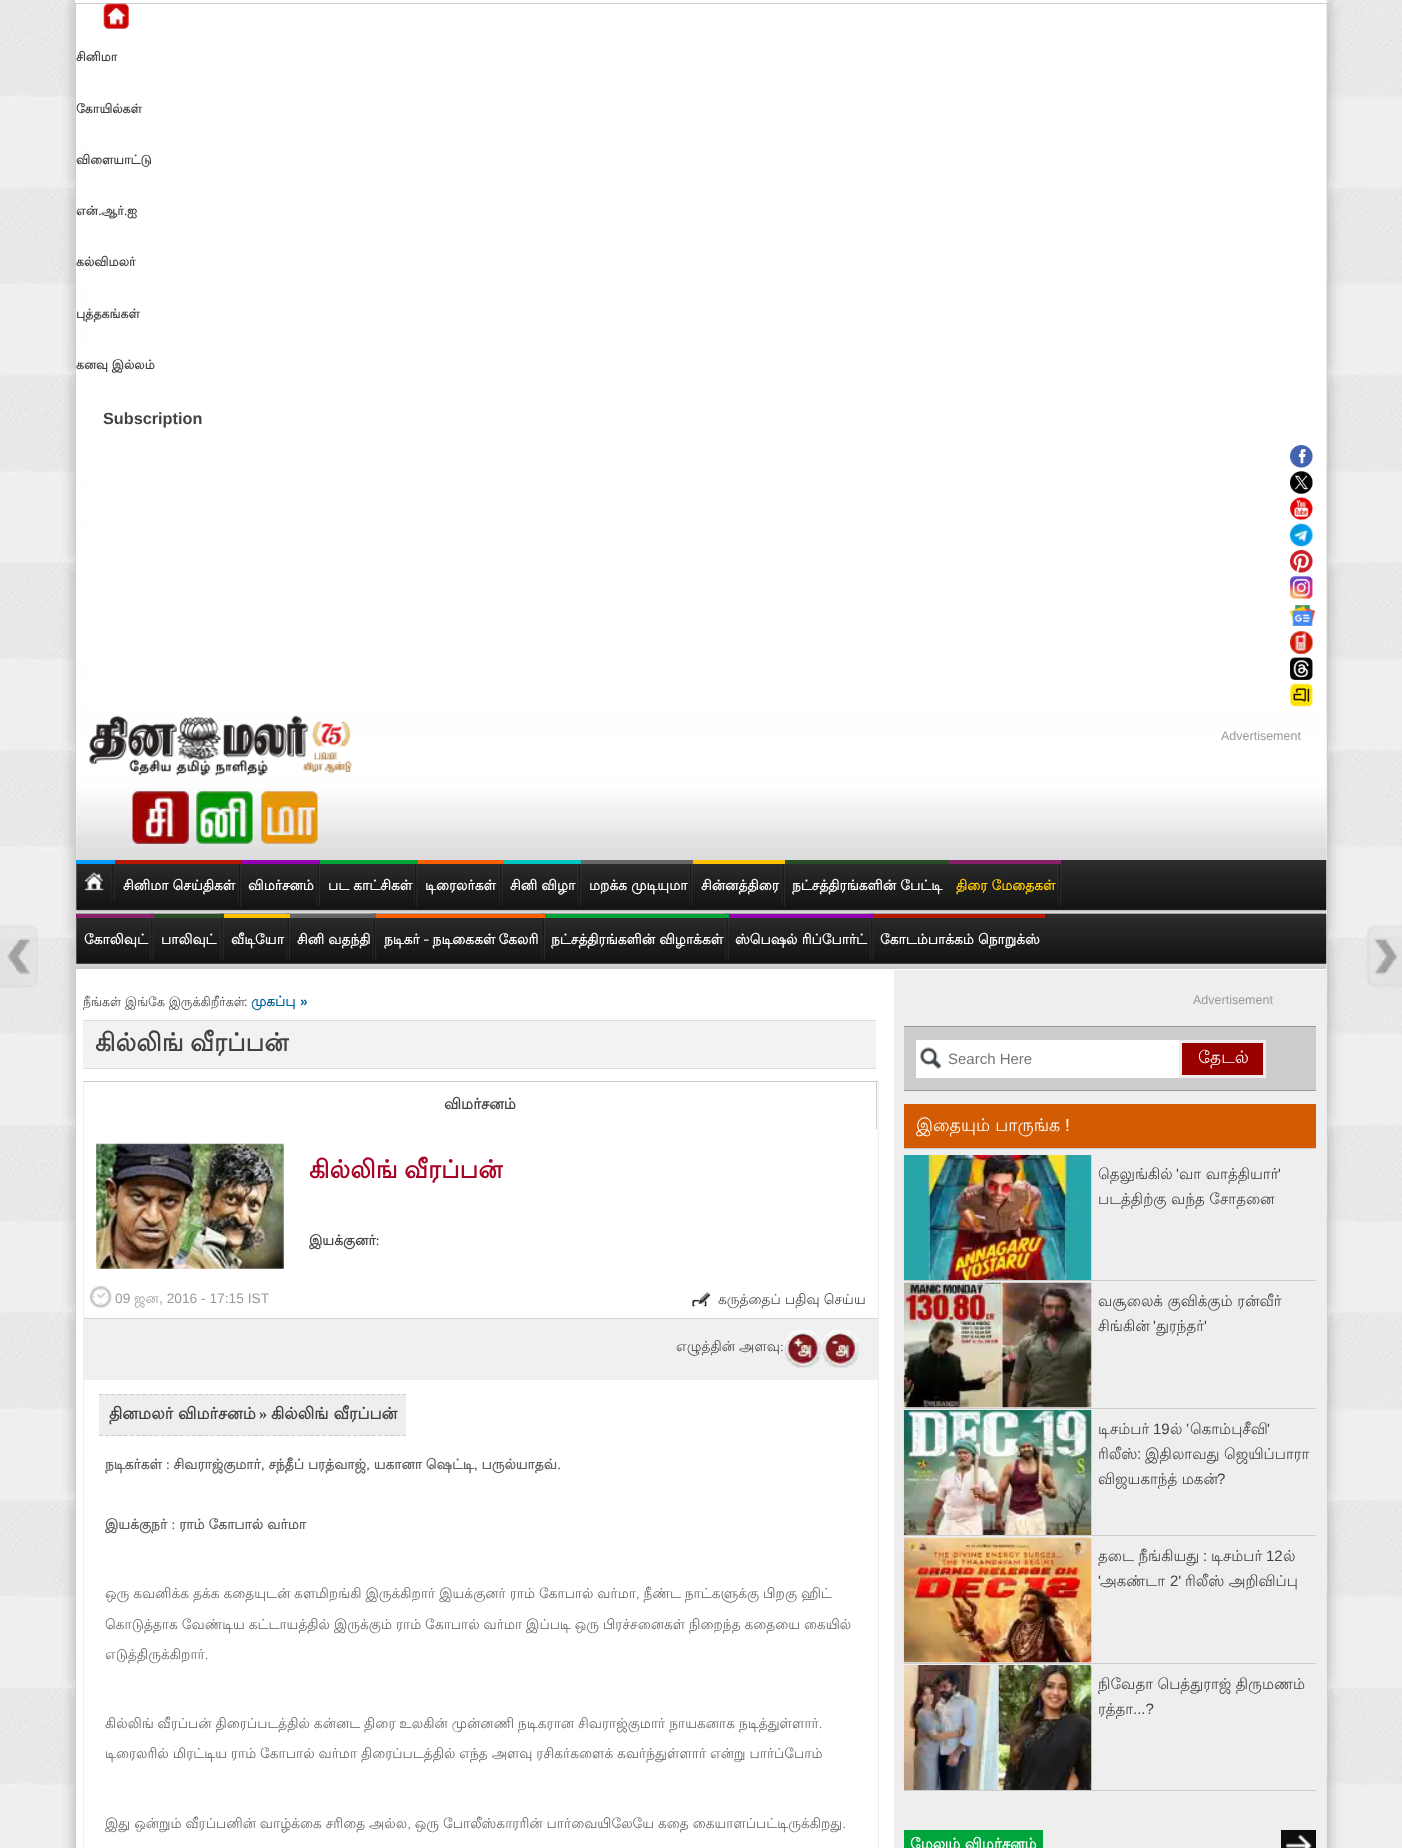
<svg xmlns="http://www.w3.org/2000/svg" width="1402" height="1848">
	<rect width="100%" height="100%" fill="#FFFFFF" />
	<image x="0" y="0" width="1402" height="1848" href="assets/img1.png" />
	<rect x="75.5" y="3.5" width="1252" height="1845" fill="none" stroke="#CCCCCC" />
	<image x="103" y="3" width="26" height="26" href="assets/img2.png" />
	<g font-family="Lohit Tamil" font-size="12.5" font-weight="700" fill="#434242">
		<text x="76" y="61">சினிமா</text>
		<text x="76" y="113">கோயில்கள்</text>
		<text x="76" y="164">விளையாட்டு</text>
		<text x="76" y="215">என்.ஆர்.ஐ</text>
		<text x="76" y="266">கல்விமலர்</text>
		<text x="76" y="318">புத்தகங்கள்</text>
		<text x="76" y="369">கனவு இல்லம்</text>
	</g>
	<text x="103" y="424" font-family="Liberation Sans" font-size="16.25" font-weight="700" fill="#434242">Subscription</text>
	<image x="1290" y="445" width="23" height="23" href="assets/img3.png" />
	<image x="1290" y="471" width="23" height="23" href="assets/img4.png" />
	<image x="1290" y="497" width="23" height="23" href="assets/img5.png" />
	<image x="1290" y="523" width="23" height="24" href="assets/img6.png" />
	<image x="1290" y="550" width="23" height="23" href="assets/img7.png" />
	<image x="1290" y="576" width="23" height="23" href="assets/img8.png" />
	<image x="1290" y="605" width="25" height="21" href="assets/img9.png" />
	<image x="1290" y="631" width="23" height="23" href="assets/img10.png" />
	<image x="1290" y="657" width="23" height="23" href="assets/img11.png" />
	<image x="1290" y="683" width="23" height="24" href="assets/img12.png" />
	<image x="76" y="713" width="1251" height="149" href="assets/img13.png" />
	<image x="89" y="715" width="263" height="61" href="assets/img14.png" />
	<image x="132" y="791" width="186" height="53" href="assets/img15.png" />
	<text x="1221" y="740" font-family="Liberation Sans" font-size="12.5" fill="#999999">Advertisement</text>
	<image x="76" y="860" width="1251" height="54" href="assets/img16.png" />
	<rect x="76" y="913" width="1250" height="1" fill="#CCCCCC" />
	<image x="111" y="864" width="4" height="36" href="assets/img17.png" />
	<rect x="76" y="860" width="39" height="4" fill="#009BFF" />
	<image x="84" y="872" width="20" height="19" href="assets/img18.png" />
	<image x="237" y="864" width="5" height="42" href="assets/img19.png" />
	<rect x="115" y="860" width="126" height="4" fill="#B81800" />
	<text x="123" y="890" font-family="Lohit Tamil" font-size="13.75" font-weight="700" fill="#FFFFFF">சினிமா செய்திகள்</text>
	<image x="316" y="864" width="4" height="43" href="assets/img20.png" />
	<rect x="241" y="860" width="79" height="4" fill="#9600B4" />
	<text x="248" y="890" font-family="Lohit Tamil" font-size="13.75" font-weight="700" fill="#FFFFFF">விமர்சனம்</text>
	<image x="414" y="864" width="4" height="42" href="assets/img21.png" />
	<rect x="320" y="860" width="98" height="4" fill="#00A53C" />
	<text x="328" y="890" font-family="Lohit Tamil" font-size="13.75" font-weight="700" fill="#FFFFFF">பட காட்சிகள்</text>
	<image x="499" y="864" width="4" height="42" href="assets/img21.png" />
	<rect x="418" y="860" width="85" height="4" fill="#FA5F00" />
	<text x="425" y="890" font-family="Lohit Tamil" font-size="13.75" font-weight="700" fill="#FFFFFF">டிரைலர்கள்</text>
	<image x="577" y="864" width="5" height="42" href="assets/img19.png" />
	<rect x="503" y="860" width="78" height="4" fill="#00C3C3" />
	<text x="510" y="890" font-family="Lohit Tamil" font-size="13.75" font-weight="700" fill="#FFFFFF">சினி விழா</text>
	<image x="689" y="864" width="4" height="42" href="assets/img21.png" />
	<rect x="581" y="860" width="112" height="4" fill="#666666" />
	<text x="589" y="890" font-family="Lohit Tamil" font-size="13.75" font-weight="700" fill="#FFFFFF">மறக்க முடியுமா</text>
	<image x="781" y="864" width="4" height="43" href="assets/img22.png" />
	<rect x="693" y="860" width="92" height="4" fill="#FFC000" />
	<text x="701" y="890" font-family="Lohit Tamil" font-size="13.75" font-weight="700" fill="#FFFFFF">சின்னத்திரை</text>
	<rect x="785" y="860" width="164" height="4" fill="#294C29" />
	<text x="792" y="890" font-family="Lohit Tamil" font-size="13.75" font-weight="700" fill="#FFFFFF">நட்சத்திரங்களின் பேட்டி</text>
	<image x="1057" y="860" width="5" height="46" href="assets/img23.png" />
	<rect x="949" y="860" width="112" height="4" fill="#8B206A" />
	<text x="956" y="890" font-family="Lohit Tamil" font-size="13.75" font-weight="700" fill="#FFCC00">திரை மேதைகள்</text>
	<image x="76" y="913" width="1251" height="55" href="assets/img24.png" />
	<rect x="76" y="966" width="1250" height="3" fill="#CCCCCC" />
	<image x="150" y="913" width="4" height="47" href="assets/img25.png" />
	<rect x="76" y="914" width="78" height="4" fill="#8B206A" />
	<text x="84" y="944" font-family="Lohit Tamil" font-size="13.75" font-weight="700" fill="#FFFFFF">கோலிவுட்</text>
	<image x="220" y="913" width="4" height="47" href="assets/img25.png" />
	<rect x="154" y="914" width="70" height="4" fill="#294C29" />
	<text x="161" y="944" font-family="Lohit Tamil" font-size="13.75" font-weight="700" fill="#FFFFFF">பாலிவுட்</text>
	<image x="286" y="913" width="4" height="47" href="assets/img26.png" />
	<rect x="224" y="914" width="66" height="4" fill="#FFC000" />
	<text x="231" y="944" font-family="Lohit Tamil" font-size="13.75" font-weight="700" fill="#FFFFFF">வீடியோ</text>
	<image x="372" y="913" width="5" height="47" href="assets/img27.png" />
	<rect x="290" y="914" width="86" height="4" fill="#666666" />
	<text x="297" y="944" font-family="Lohit Tamil" font-size="13.75" font-weight="700" fill="#FFFFFF">சினி வதந்தி</text>
	<image x="541" y="913" width="4" height="47" href="assets/img26.png" />
	<rect x="376" y="914" width="169" height="4" fill="#FA5F00" />
	<text x="384" y="944" word-spacing="-1" font-family="Lohit Tamil" font-size="13.75" font-weight="700" fill="#FFFFFF">நடிகர் - நடிகைகள் கேலரி</text>
	<image x="725" y="913" width="4" height="47" href="assets/img28.png" />
	<rect x="545" y="914" width="184" height="4" fill="#00A53C" />
	<text x="551" y="944" font-family="Lohit Tamil" font-size="13.75" font-weight="700" fill="#FFFFFF">நட்சத்திரங்களின் விழாக்கள்</text>
	<image x="870" y="913" width="4" height="47" href="assets/img25.png" />
	<rect x="729" y="914" width="145" height="4" fill="#9600B4" />
	<text x="735" y="944" font-family="Lohit Tamil" font-size="13.75" font-weight="700" fill="#FFFFFF">ஸ்பெஷல் ரிப்போர்ட்</text>
	<rect x="874" y="914" width="171" height="4" fill="#B81800" />
	<text x="880" y="944" font-family="Lohit Tamil" font-size="13.75" font-weight="700" fill="#FFFFFF">கோடம்பாக்கம் நொறுக்ஸ்</text>
	<image x="0" y="925" width="38" height="63" href="assets/img29.png" />
	<image x="1366" y="925" width="36" height="63" href="assets/img30.png" />
	<text x="83" y="1006" font-family="Lohit Tamil" font-size="12.5" fill="#434242">நீங்கள் இங்கே இருக்கிறீர்கள்</text>
	<text x="244" y="1006" font-family="Liberation Sans" font-size="12.5" fill="#434242">:</text>
	<text x="251" y="1006" font-family="Lohit Tamil" font-size="13.75" font-weight="700" fill="#006699">முகப்பு</text>
	<text x="300" y="1006" font-family="Liberation Sans" font-size="13.75" font-weight="700" fill="#006699">»</text>
	<rect x="83" y="1021" width="793" height="47" fill="#F2F2F2" />
	<rect x="83" y="1020" width="793" height="1" fill="#DCDCDC" />
	<rect x="83" y="1068" width="793" height="1" fill="#DCDCDC" />
	<text x="95" y="1051" word-spacing="-1" font-family="Lohit Tamil" font-size="25" font-weight="700" fill="#434242">கில்லிங் வீரப்பன்</text>
	<rect x="878" y="1081" width="1" height="767" fill="#EEEEEE" />
	<rect x="83" y="1081" width="1" height="767" fill="#EEEEEE" />
	<rect x="84" y="1081" width="794" height="1" fill="#C9C9C9" />
	<rect x="876" y="1081" width="1" height="48" fill="#C9C9C9" />
	<text x="444" y="1109" font-family="Lohit Tamil" font-size="15" font-weight="700" fill="#434242">விமர்சனம்</text>
	<image x="96" y="1143" width="188" height="126" href="assets/img31.png" />
	<text x="309" y="1178" word-spacing="-1" font-family="Lohit Tamil" font-size="25" font-weight="700" fill="#A80327">கில்லிங் வீரப்பன்</text>
	<text x="309" y="1245" font-family="Lohit Tamil" font-size="13.75" font-weight="700" fill="#434242">இயக்குனர்:</text>
	<image x="90" y="1286" width="22" height="22" href="assets/img32.png" />
	<text x="115" y="1303" font-family="Liberation Sans" font-size="13.75" fill="#999999">09</text>
	<text x="134" y="1303" font-family="Lohit Tamil" font-size="13.75" fill="#999999">ஜன</text>
	<text x="159" y="1303" font-family="Liberation Sans" font-size="13.75" fill="#999999">, 2016 - 17:15 IST</text>
	<image x="691" y="1292" width="20" height="15" href="assets/img33.png" />
	<g font-family="Lohit Tamil" font-size="13.75" fill="#434242">
		<text x="718" y="1304">கருத்தைப்</text>
		<text x="785" y="1304">பதிவு செய்ய</text>
	</g>
	<rect x="84" y="1319" width="794" height="61" fill="#F0F0F0" />
	<rect x="84" y="1318" width="794" height="1" fill="#D5D5D5" />
	<text x="676" y="1351" font-family="Lohit Tamil" font-size="13.75" fill="#434242">எழுத்தின் அளவு:</text>
	<image x="783" y="1330" width="39" height="38" href="assets/img34.png" />
	<image x="821" y="1330" width="38" height="38" href="assets/img35.png" />
	<rect x="99" y="1394" width="307" height="42" fill="#EEEEEE" />
	<path d="M99 1394.5H406" fill="none" stroke="#CCCCCC" stroke-width="1.2" stroke-dasharray="3.75 2.45" />
	<path d="M99 1435.5H406" fill="none" stroke="#CCCCCC" stroke-width="1.2" stroke-dasharray="3.75 2.45" />
	<text x="109" y="1419" font-family="Lohit Tamil" font-size="16.25" font-weight="700" fill="#434242">தினமலர் விமர்சனம்</text>
	<text x="259" y="1419" font-family="Liberation Serif" font-size="16.25" font-weight="700" fill="#434242">»</text>
	<text x="271" y="1419" font-family="Lohit Tamil" font-size="16.25" font-weight="700" fill="#434242">கில்லிங் வீரப்பன்</text>
	<g font-family="Lohit Tamil" font-size="13.75" font-weight="700" fill="#616161">
		<text x="105" y="1469" word-spacing="-0.25">நடிகர்கள் : சிவராஜ்குமார், சந்தீப் பரத்வாஜ், யகானா ஷெட்டி, பருல்யாதவ்.</text>
		<text x="105" y="1529">இயக்குநர் : ராம் கோபால் வர்மா</text>
	</g>
	<g font-family="Lohit Tamil" font-size="13.75" fill="#616161">
		<text x="105" y="1598" word-spacing="-0.25">ஒரு கவனிக்க தக்க கதையுடன் களமிறங்கி இருக்கிறார் இயக்குனர் ராம் கோபால் வர்மா, நீண்ட நாட்களுக்கு பிறகு ஹிட்</text>
		<text x="105" y="1629" word-spacing="-0.25">கொடுத்தாக வேண்டிய கட்டாயத்தில் இருக்கும் ராம் கோபால் வர்மா இப்படி ஒரு பிரச்சனைகள் நிறைந்த கதையை கையில்</text>
		<text x="105" y="1659">எடுத்திருக்கிறார்.</text>
		<text x="105" y="1728" word-spacing="-0.25">கில்லிங் வீரப்பன் திரைப்படத்தில் கன்னட திரை உலகின் முன்னணி நடிகரான சிவராஜ்குமார் நாயகனாக நடித்துள்ளார்.</text>
		<text x="105" y="1758" word-spacing="-0.25">டிரைலரில் மிரட்டிய ராம் கோபால் வர்மா திரைப்படத்தில் எந்த அளவு ரசிகர்களைக் கவர்ந்துள்ளார் என்று பார்ப்போம்</text>
		<text x="105" y="1828" word-spacing="-0.25">இது ஒன்றும் வீரப்பனின் வாழ்க்கை சரிதை அல்ல, ஒரு போலீஸ்காரரின் பார்வையிலேயே கதை கையாளப்பட்டிருக்கிறது.</text>
	</g>
	<rect x="894" y="970" width="432" height="878" fill="#EEEEEE" />
	<text x="1193" y="1004" font-family="Liberation Sans" font-size="12.5" fill="#999999">Advertisement</text>
	<rect x="904" y="1027" width="412" height="63" fill="#CCCCCC" />
	<rect x="904" y="1026" width="412" height="1" fill="#999999" />
	<rect x="904" y="1090" width="412" height="1" fill="#999999" />
	<rect x="916" y="1040" width="263" height="38" fill="#FFFFFF" />
	<image x="919" y="1047" width="23" height="22" href="assets/img36.png" />
	<text x="948" y="1064" font-family="Liberation Sans" font-size="15" fill="#757575">Search Here</text>
	<rect x="1180.5" y="1041.5" width="84" height="35" fill="#990000" stroke="#EEEEEE" stroke-width="3" />
	<text x="1198" y="1063" font-family="Lohit Tamil" font-size="17" fill="#FFFFFF">தேடல்</text>
	<rect x="904" y="1104" width="412" height="44" fill="#D25B03" />
	<rect x="904" y="1148" width="412" height="1" fill="#CCCCCC" />
	<text x="916" y="1131" font-family="Lohit Tamil" font-size="17.5" fill="#FFFFFF">இதையும் பாருங்க</text>
	<text x="1065" y="1131" font-family="Liberation Sans" font-size="17.5" fill="#FFFFFF">!</text>
	<rect x="904" y="1280" width="412" height="1" fill="#CCCCCC" />
	<image x="903" y="1155" width="189" height="125" href="assets/img37.png" />
	<text x="1098" y="1179" font-family="Lohit Tamil" font-size="15" fill="#434242">தெலுங்கில்</text>
	<text x="1176" y="1179" font-family="Liberation Sans" font-size="15" fill="#434242">'</text>
	<text x="1179" y="1179" font-family="Lohit Tamil" font-size="15" fill="#434242">வா வாத்தியார்</text>
	<text x="1278" y="1179" font-family="Liberation Sans" font-size="15" fill="#434242">'</text>
	<text x="1098" y="1204" font-family="Lohit Tamil" font-size="15" fill="#434242">படத்திற்கு வந்த சோதனை</text>
	<rect x="904" y="1408" width="412" height="1" fill="#CCCCCC" />
	<image x="903" y="1282" width="189" height="126" href="assets/img38.png" />
	<g font-family="Lohit Tamil" font-size="15" fill="#434242">
		<text x="1098" y="1306">வசூலைக் குவிக்கும் ரன்வீர்</text>
		<text x="1098" y="1331">சிங்கின்</text>
	</g>
	<text x="1153" y="1331" font-family="Liberation Sans" font-size="15" fill="#434242">'</text>
	<text x="1156" y="1331" font-family="Lohit Tamil" font-size="15" fill="#434242">துரந்தர்</text>
	<text x="1204" y="1331" font-family="Liberation Sans" font-size="15" fill="#434242">'</text>
	<rect x="904" y="1535" width="412" height="1" fill="#CCCCCC" />
	<image x="903" y="1410" width="189" height="125" href="assets/img39.png" />
	<text x="1098" y="1434" font-family="Lohit Tamil" font-size="15" fill="#434242">டிசம்பர்</text>
	<text x="1153" y="1434" font-family="Liberation Sans" font-size="15" fill="#434242">19</text>
	<text x="1170" y="1434" font-family="Lohit Tamil" font-size="15" fill="#434242">ல்</text>
	<text x="1186" y="1434" font-family="Liberation Sans" font-size="15" fill="#434242">‛</text>
	<text x="1190" y="1434" font-family="Lohit Tamil" font-size="15" fill="#434242">கொம்புசீவி</text>
	<text x="1267" y="1434" font-family="Liberation Sans" font-size="15" fill="#434242">'</text>
	<text x="1098" y="1459" font-family="Lohit Tamil" font-size="15" fill="#434242">ரிலீஸ்</text>
	<text x="1137" y="1459" font-family="Liberation Sans" font-size="15" fill="#434242">:</text>
	<g font-family="Lohit Tamil" font-size="15" fill="#434242">
		<text x="1145" y="1459">இதிலாவது ஜெயிப்பாரா</text>
		<text x="1098" y="1484">விஜயகாந்த் மகன்</text>
	</g>
	<text x="1217" y="1484" font-family="Liberation Sans" font-size="15" fill="#434242">?</text>
	<rect x="904" y="1663" width="412" height="1" fill="#CCCCCC" />
	<image x="903" y="1537" width="189" height="126" href="assets/img40.png" />
	<text x="1098" y="1561" font-family="Lohit Tamil" font-size="15" fill="#434242">தடை நீங்கியது</text>
	<text x="1203" y="1561" font-family="Liberation Sans" font-size="15" fill="#434242">:</text>
	<text x="1211" y="1561" font-family="Lohit Tamil" font-size="15" fill="#434242">டிசம்பர்</text>
	<text x="1266" y="1561" font-family="Liberation Sans" font-size="15" fill="#434242">12</text>
	<text x="1283" y="1561" font-family="Lohit Tamil" font-size="15" fill="#434242">ல்</text>
	<text x="1098" y="1586" font-family="Liberation Sans" font-size="15" fill="#434242">'</text>
	<text x="1100" y="1586" font-family="Lohit Tamil" font-size="15" fill="#434242">அகண்டா</text>
	<text x="1170" y="1586" font-family="Liberation Sans" font-size="15" fill="#434242">2'</text>
	<text x="1185" y="1586" font-family="Lohit Tamil" font-size="15" fill="#434242">ரிலீஸ் அறிவிப்பு</text>
	<rect x="904" y="1790" width="412" height="1" fill="#CCCCCC" />
	<image x="903" y="1665" width="189" height="125" href="assets/img41.png" />
	<g font-family="Lohit Tamil" font-size="15" fill="#434242">
		<text x="1098" y="1689">நிவேதா பெத்துராஜ் திருமணம்</text>
		<text x="1098" y="1714">ரத்தா</text>
	</g>
	<text x="1133" y="1714" font-family="Liberation Sans" font-size="15" fill="#434242">...?</text>
	<rect x="904" y="1830" width="139" height="18" fill="#00A53C" />
	<text x="910" y="1849" font-family="Lohit Tamil" font-size="15" font-weight="700" fill="#FFFFFF">மேலும் விமர்சனம்</text>
	<rect x="1281" y="1830" width="35" height="18" fill="#0E0E0E" />
	<image x="1286" y="1835" width="26" height="13" href="assets/img42.png" />
</svg>
